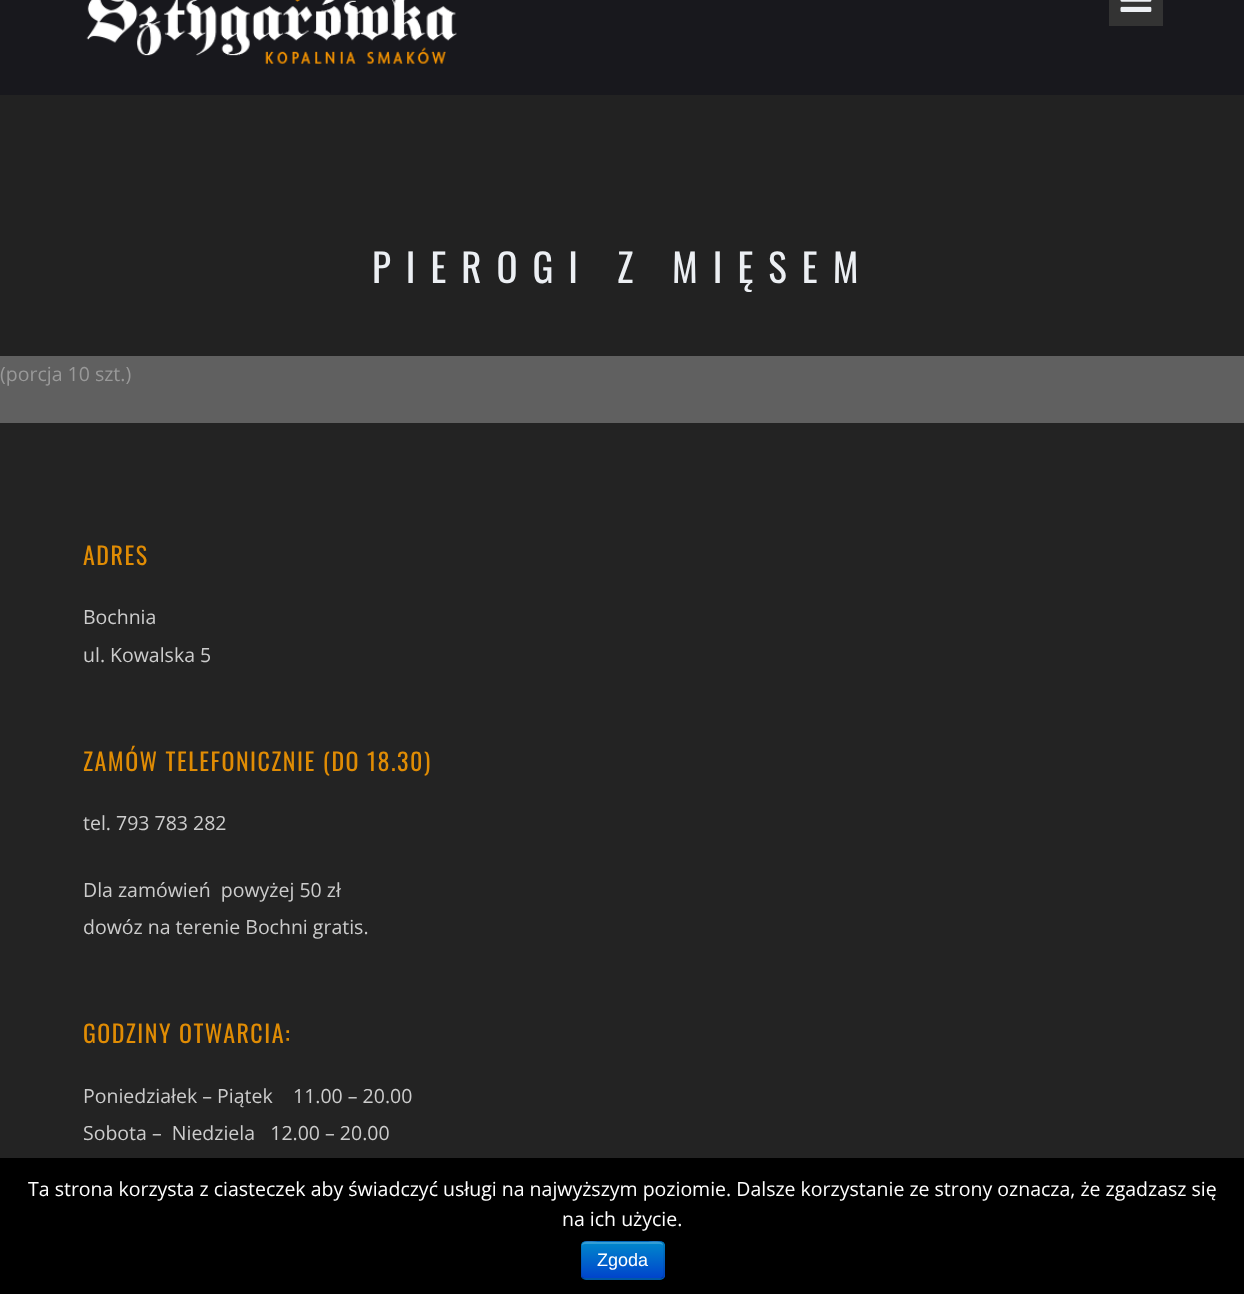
<svg xmlns="http://www.w3.org/2000/svg" width="1244" height="1294">
	<defs>
		<clipPath id="clip1"><rect x="581" y="1241" width="84" height="39" rx="5" /></clipPath>
		<linearGradient id="g1" gradientUnits="userSpaceOnUse" x1="623" y1="1242" x2="623" y2="1278"><stop offset="0" stop-color="#0088CC" /><stop offset="1" stop-color="#0044CC" /></linearGradient>
	</defs>
	<rect width="100%" height="100%" fill="#606060" />
	<rect x="0" y="0" width="1244" height="95" fill="#18181D" />
	<image x="86" y="0" width="371" height="64" href="assets/img1.png" />
	<rect x="1109" y="0" width="54" height="26" fill="#333333" />
	<image x="1120" y="0" width="32" height="12" href="assets/img2.png" />
	<rect x="0" y="95" width="1244" height="261" fill="#222222" />
	<text x="372" y="283" font-family="Oswald" font-size="39" letter-spacing="15" fill="#ECEFF3">PIEROGI Z MIĘSEM</text>
	<text x="0" y="381" font-family="Open Sans" font-size="19.5" fill="#999999">(porcja 10 szt.)</text>
	<rect x="0" y="423" width="1244" height="735" fill="#232323" />
	<text x="83" y="565" font-family="Oswald" font-size="24" letter-spacing="1.5" fill="#E08C04">ADRES</text>
	<g font-family="Open Sans" font-size="19.5" fill="#CCCCCC">
		<text x="83" y="624">Bochnia</text>
		<text x="83" y="662">ul. Kowalska 5</text>
	</g>
	<text x="83" y="771" font-family="Oswald" font-size="24" letter-spacing="1.5" fill="#E08C04">ZAMÓW TELEFONICZNIE (DO 18.30)</text>
	<g font-family="Open Sans" font-size="19.5" fill="#CCCCCC">
		<text x="83" y="830">tel. 793 783 282</text>
		<text x="83" y="897" xml:space="preserve">Dla zamówień  powyżej 50 zł</text>
		<text x="83" y="934">dowóz na terenie Bochni gratis.</text>
	</g>
	<text x="83" y="1043" font-family="Oswald" font-size="24" letter-spacing="1.5" fill="#E08C04">GODZINY OTWARCIA:</text>
	<g font-family="Open Sans" font-size="19.5" fill="#CCCCCC">
		<text x="83" y="1103" xml:space="preserve">Poniedziałek – Piątek    11.00 – 20.00</text>
		<text x="83" y="1140" xml:space="preserve">Sobota –  Niedziela   12.00 – 20.00</text>
	</g>
	<rect x="0" y="1158" width="1244" height="136" fill="#000000" />
	<g font-family="Open Sans" font-size="19.5" fill="#FFFFFF">
		<text x="28" y="1196">Ta strona korzysta z ciasteczek aby świadczyć usługi na najwyższym poziomie. Dalsze korzystanie ze strony oznacza, że zgadzasz się</text>
		<text x="562" y="1226">na ich użycie.</text>
	</g>
	<rect x="581" y="1241" width="84" height="39" rx="5" fill="#006DCC" />
	<g clip-path="url(#clip1)">
		<rect x="581" y="1242" width="84" height="36" fill="url(#g1)" />
	</g>
	<path d="M585 1244H660C662 1244 663 1245 663 1246C663 1239 651 1242 648 1242H598C594 1242 582 1239 582 1246C582 1245 583 1244 585 1244Z" fill="#FFFFFF" fill-opacity="0.2" />
	<path d="M662.5 1277.5C662 1278.5 661 1279 660 1279H585C584 1279 583 1278.5 582.5 1277.5" fill="none" stroke="#000000" stroke-opacity="0.25" stroke-width="1.5" />
	<path d="M582.5 1277.5C580.5 1276 581 1272 581 1270V1260C581 1239.5 577.5 1241 597.5 1241H647.5C667.5 1241 664 1239.5 664 1260V1270C664 1272 664.5 1276 662.5 1277.5" fill="none" stroke="#000000" stroke-opacity="0.1" stroke-width="1.5" />
	<text x="597" y="1266" font-family="Liberation Sans" font-size="18" fill="#FFFFFF">Zgoda</text>
</svg>
